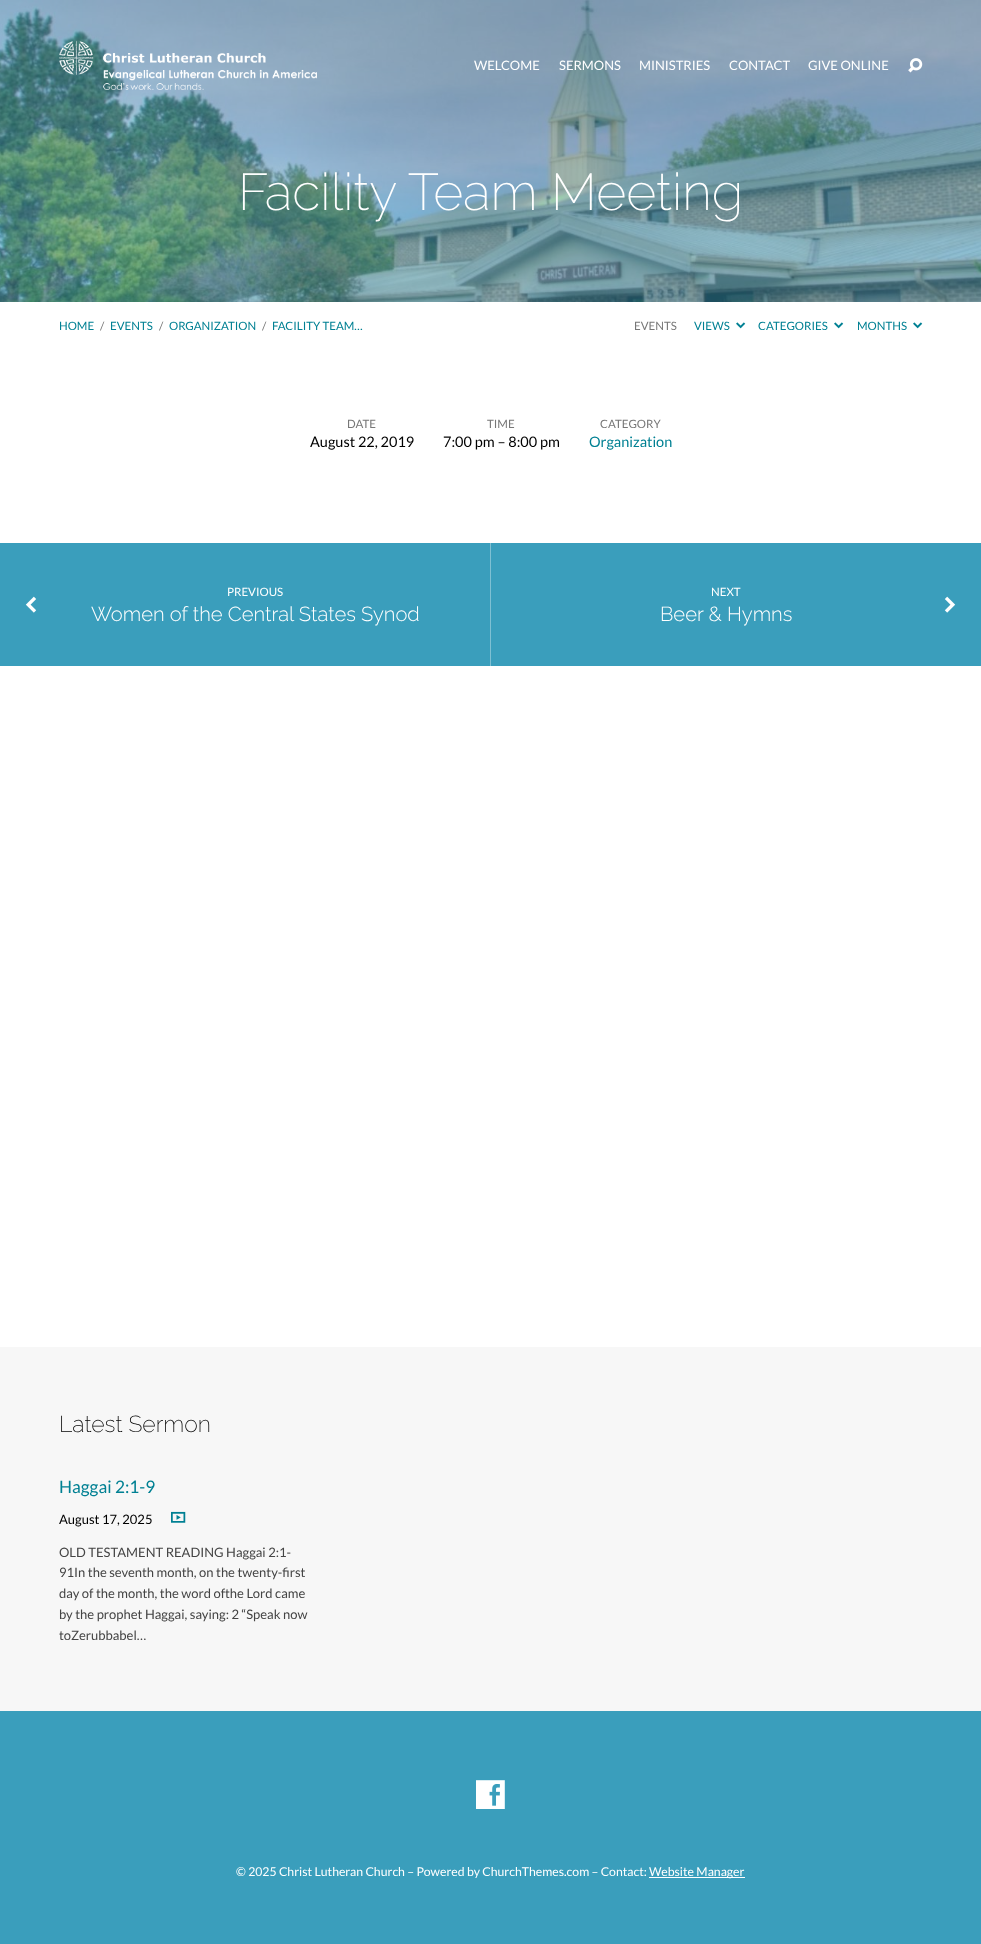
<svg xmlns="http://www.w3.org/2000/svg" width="981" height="1944">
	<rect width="100%" height="100%" fill="#FFFFFF" />
	<rect x="0" y="0" width="981" height="302" fill="#3A9EBC" />
	<image x="0" y="0" width="981" height="302" href="assets/img3.png" />
	<image x="58" y="40" width="259" height="50" href="assets/img1.png" />
	<g font-family="Lato" font-size="13" fill="#FFFFFF">
		<text x="474" y="70">WELCOME</text>
		<text x="559" y="70">SERMONS</text>
		<text x="639" y="70">MINISTRIES</text>
		<text x="729" y="70">CONTACT</text>
		<text x="808" y="70">GIVE ONLINE</text>
	</g>
	<image x="908" y="58" width="15" height="15" href="assets/img2.png" />
	<text x="238" y="210" font-family="Raleway" font-size="51.75" font-weight="200" fill="#FFFFFF">Facility Team Meeting</text>
	<text x="59" y="330" font-family="Lato" font-size="11.5" fill="#008093">HOME</text>
	<text x="100" y="330" font-family="Lato" font-size="11.5" fill="#777777">/</text>
	<text x="110" y="330" font-family="Lato" font-size="11.5" fill="#008093">EVENTS</text>
	<text x="159" y="330" font-family="Lato" font-size="11.5" fill="#777777">/</text>
	<text x="169" y="330" font-family="Lato" font-size="11.5" fill="#008093">ORGANIZATION</text>
	<text x="262" y="330" font-family="Lato" font-size="11.5" fill="#777777">/</text>
	<text x="272" y="330" font-family="Lato" font-size="11.5" fill="#008093">FACILITY TEAM…</text>
	<text x="634" y="330" font-family="Lato" font-size="11.5" fill="#777777">EVENTS</text>
	<text x="694" y="330" font-family="Lato" font-size="11.5" fill="#008093">VIEWS</text>
	<image x="736" y="322" width="10" height="7" href="assets/img4.png" />
	<text x="758" y="330" font-family="Lato" font-size="11.5" fill="#008093">CATEGORIES</text>
	<image x="834" y="322" width="10" height="7" href="assets/img4.png" />
	<text x="857" y="330" font-family="Lato" font-size="11.5" fill="#008093">MONTHS</text>
	<image x="913" y="322" width="10" height="7" href="assets/img4.png" />
	<text x="347" y="428" font-family="Lato" font-size="11.5" fill="#777777">DATE</text>
	<text x="310" y="447" font-family="Lato" font-size="14.5" fill="#000000">August 22, 2019</text>
	<text x="487" y="428" font-family="Lato" font-size="11.5" fill="#777777">TIME</text>
	<text x="443" y="447" font-family="Lato" font-size="14.5" fill="#000000">7:00 pm – 8:00 pm</text>
	<text x="600" y="428" font-family="Lato" font-size="11.5" fill="#777777">CATEGORY</text>
	<text x="589" y="447" font-family="Lato" font-size="14.5" fill="#008093">Organization</text>
	<rect x="0" y="543" width="981" height="123" fill="#3A9EBC" />
	<rect x="490" y="543" width="1" height="123" fill="#7FC0D3" />
	<image x="25" y="596" width="12" height="17" href="assets/img5.png" />
	<text x="227" y="596" font-family="Lato" font-size="11.5" fill="#FFFFFF">PREVIOUS</text>
	<text x="91" y="621" font-family="Raleway" font-size="20.2" font-weight="300" fill="#FFFFFF">Women of the Central States Synod</text>
	<text x="711" y="596" font-family="Lato" font-size="11.5" fill="#FFFFFF">NEXT</text>
	<text x="660" y="621" font-family="Raleway" font-size="20.2" font-weight="300" fill="#FFFFFF">Beer &amp; Hymns</text>
	<image x="944" y="596" width="12" height="17" href="assets/img6.png" />
	<rect x="0" y="1347" width="981" height="364" fill="#F7F7F7" />
	<text x="59" y="1432" font-family="Raleway" font-size="23" font-weight="200" fill="#000000">Latest Sermon</text>
	<text x="59" y="1493" font-family="Lato" font-size="17.25" fill="#008093">Haggai 2:1-9</text>
	<text x="59" y="1524" font-family="Lato" font-size="13" fill="#000000">August 17, 2025</text>
	<image x="171" y="1511" width="15" height="12" href="assets/img7.png" />
	<g font-family="Lato" font-size="13" fill="#444444">
		<text x="59" y="1557">OLD TESTAMENT READING Haggai 2:1-</text>
		<text x="59" y="1577">91In the seventh month, on the twenty-first</text>
		<text x="59" y="1598">day of the month, the word ofthe Lord came</text>
		<text x="59" y="1619">by the prophet Haggai, saying: 2 “Speak now</text>
		<text x="59" y="1640">toZerubbabel…</text>
	</g>
	<rect x="0" y="1711" width="981" height="233" fill="#3A9EBC" />
	<image x="476" y="1780" width="29" height="29" href="assets/img8.png" />
	<text x="236" y="1876" font-family="Lato" font-size="12.25" fill="#FFFFFF">© 2025 Christ Lutheran Church – Powered by ChurchThemes.com – Contact:</text>
	<rect x="649" y="1877" width="96" height="1" fill="#FFFFFF" />
	<text x="649" y="1876" font-family="Lato" font-size="12.25" fill="#FFFFFF">Website Manager</text>
</svg>
